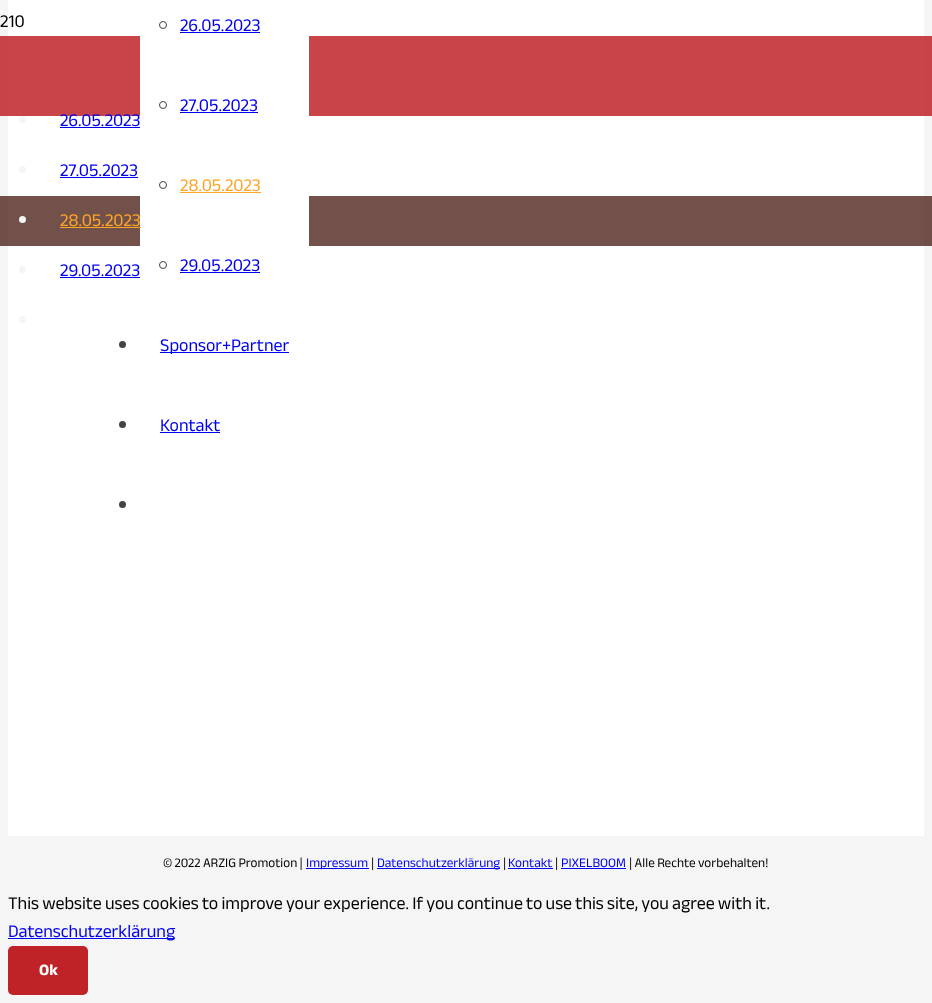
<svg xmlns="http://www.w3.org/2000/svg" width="932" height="1003">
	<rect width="100%" height="100%" fill="#F5F5F5" />
	<rect x="0" y="196" width="932" height="50" fill="#704F48" />
	<rect x="0" y="36" width="932" height="80" fill="#C74347" />
	<rect x="8" y="0" width="916" height="836" fill="#FFFFFF" />
	<text x="0" y="27" font-family="Anek Bangla" font-size="18" fill="#000000">210</text>
	<circle cx="22.5" cy="119.5" r="3.5" fill="#F5F5F5" />
	<rect x="8" y="36" width="916" height="80" fill="#C94448" />
	<text x="60" y="126" font-family="Anek Bangla" font-size="18" fill="#0000EE">26.05.2023</text>
	<rect x="60" y="127" width="80" height="1" fill="#0000EE" />
	<circle cx="22.5" cy="169.5" r="3.5" fill="#F5F5F5" />
	<text x="60" y="176" font-family="Anek Bangla" font-size="18" fill="#0000EE">27.05.2023</text>
	<rect x="60" y="177" width="78" height="1" fill="#0000EE" />
	<rect x="8" y="196" width="916" height="50" fill="#72514A" />
	<circle cx="22.5" cy="219.5" r="3.5" fill="#F5F5F5" />
	<text x="60" y="226" font-family="Anek Bangla" font-size="18" fill="#FDA527">28.05.2023</text>
	<rect x="140" y="36" width="169" height="210" fill="#FFFFFF" />
	<rect x="60" y="227" width="81" height="1" fill="#FDA527" />
	<circle cx="22.5" cy="269.5" r="3.5" fill="#F5F5F5" />
	<text x="60" y="276" font-family="Anek Bangla" font-size="18" fill="#0000EE">29.05.2023</text>
	<rect x="60" y="277" width="80" height="1" fill="#0000EE" />
	<circle cx="22.5" cy="319.5" r="3.5" fill="#F5F5F5" />
	<circle cx="163" cy="25" r="3.5" fill="none" stroke="#444444" />
	<text x="180" y="31" font-family="Anek Bangla" font-size="18" fill="#0000EE">26.05.2023</text>
	<rect x="180" y="32" width="80" height="1" fill="#0000EE" />
	<circle cx="163" cy="105" r="3.5" fill="none" stroke="#444444" />
	<text x="180" y="111" font-family="Anek Bangla" font-size="18" fill="#0000EE">27.05.2023</text>
	<rect x="180" y="112" width="78" height="1" fill="#0000EE" />
	<circle cx="163" cy="185" r="3.5" fill="none" stroke="#444444" />
	<text x="180" y="191" font-family="Anek Bangla" font-size="18" fill="#FDA527">28.05.2023</text>
	<rect x="180" y="192" width="81" height="1" fill="#FDA527" />
	<circle cx="163" cy="265" r="3.5" fill="none" stroke="#444444" />
	<text x="180" y="271" font-family="Anek Bangla" font-size="18" fill="#0000EE">29.05.2023</text>
	<rect x="180" y="272" width="80" height="1" fill="#0000EE" />
	<circle cx="122.5" cy="344.5" r="3.5" fill="#444444" />
	<rect x="160" y="352" width="129" height="1" fill="#0000EE" />
	<text x="160" y="351" font-family="Anek Bangla" font-size="18" fill="#0000EE">Sponsor+Partner</text>
	<circle cx="122.5" cy="424.5" r="3.5" fill="#444444" />
	<text x="160" y="431" font-family="Anek Bangla" font-size="18" fill="#0000EE">Kontakt</text>
	<rect x="160" y="432" width="60" height="1" fill="#0000EE" />
	<circle cx="122.5" cy="504.5" r="3.5" fill="#444444" />
	<text x="163" y="867" font-family="Anek Bangla" font-size="13.25" fill="#000000">© 2022 ARZIG Promotion |</text>
	<rect x="306" y="868" width="63" height="1" fill="#0000EE" />
	<text x="306" y="867" font-family="Anek Bangla" font-size="13.25" fill="#0000EE">Impressum</text>
	<text x="371" y="867" font-family="Anek Bangla" font-size="13.25" fill="#000000">|</text>
	<rect x="377" y="868" width="123" height="1" fill="#0000EE" />
	<text x="377" y="867" font-family="Anek Bangla" font-size="13.25" fill="#0000EE">Datenschutzerklärung</text>
	<text x="503" y="867" font-family="Anek Bangla" font-size="13.25" fill="#000000">|</text>
	<text x="508" y="867" font-family="Anek Bangla" font-size="13.25" fill="#0000EE">Kontakt</text>
	<rect x="508" y="868" width="45" height="1" fill="#0000EE" />
	<text x="555" y="867" font-family="Anek Bangla" font-size="13.25" fill="#000000">|</text>
	<text x="561" y="867" font-family="Anek Bangla" font-size="13.25" fill="#0000EE">PIXELBOOM</text>
	<rect x="561" y="868" width="65" height="1" fill="#0000EE" />
	<text x="629" y="867" font-family="Anek Bangla" font-size="13.25" fill="#000000">| Alle Rechte vorbehalten!</text>
	<text x="8" y="909" font-family="Anek Bangla" font-size="18" fill="#000000">This website uses cookies to improve your experience. If you continue to use this site, you agree with it.</text>
	<rect x="8" y="938" width="167" height="1" fill="#0000EE" />
	<text x="8" y="937" font-family="Anek Bangla" font-size="18" fill="#0000EE">Datenschutzerklärung</text>
	<rect x="8" y="946" width="80" height="49" rx="5" fill="#BF2328" />
	<text x="39" y="975" font-family="Anek Bangla" font-size="16" font-weight="700" fill="#FFFFFF">Ok</text>
</svg>
